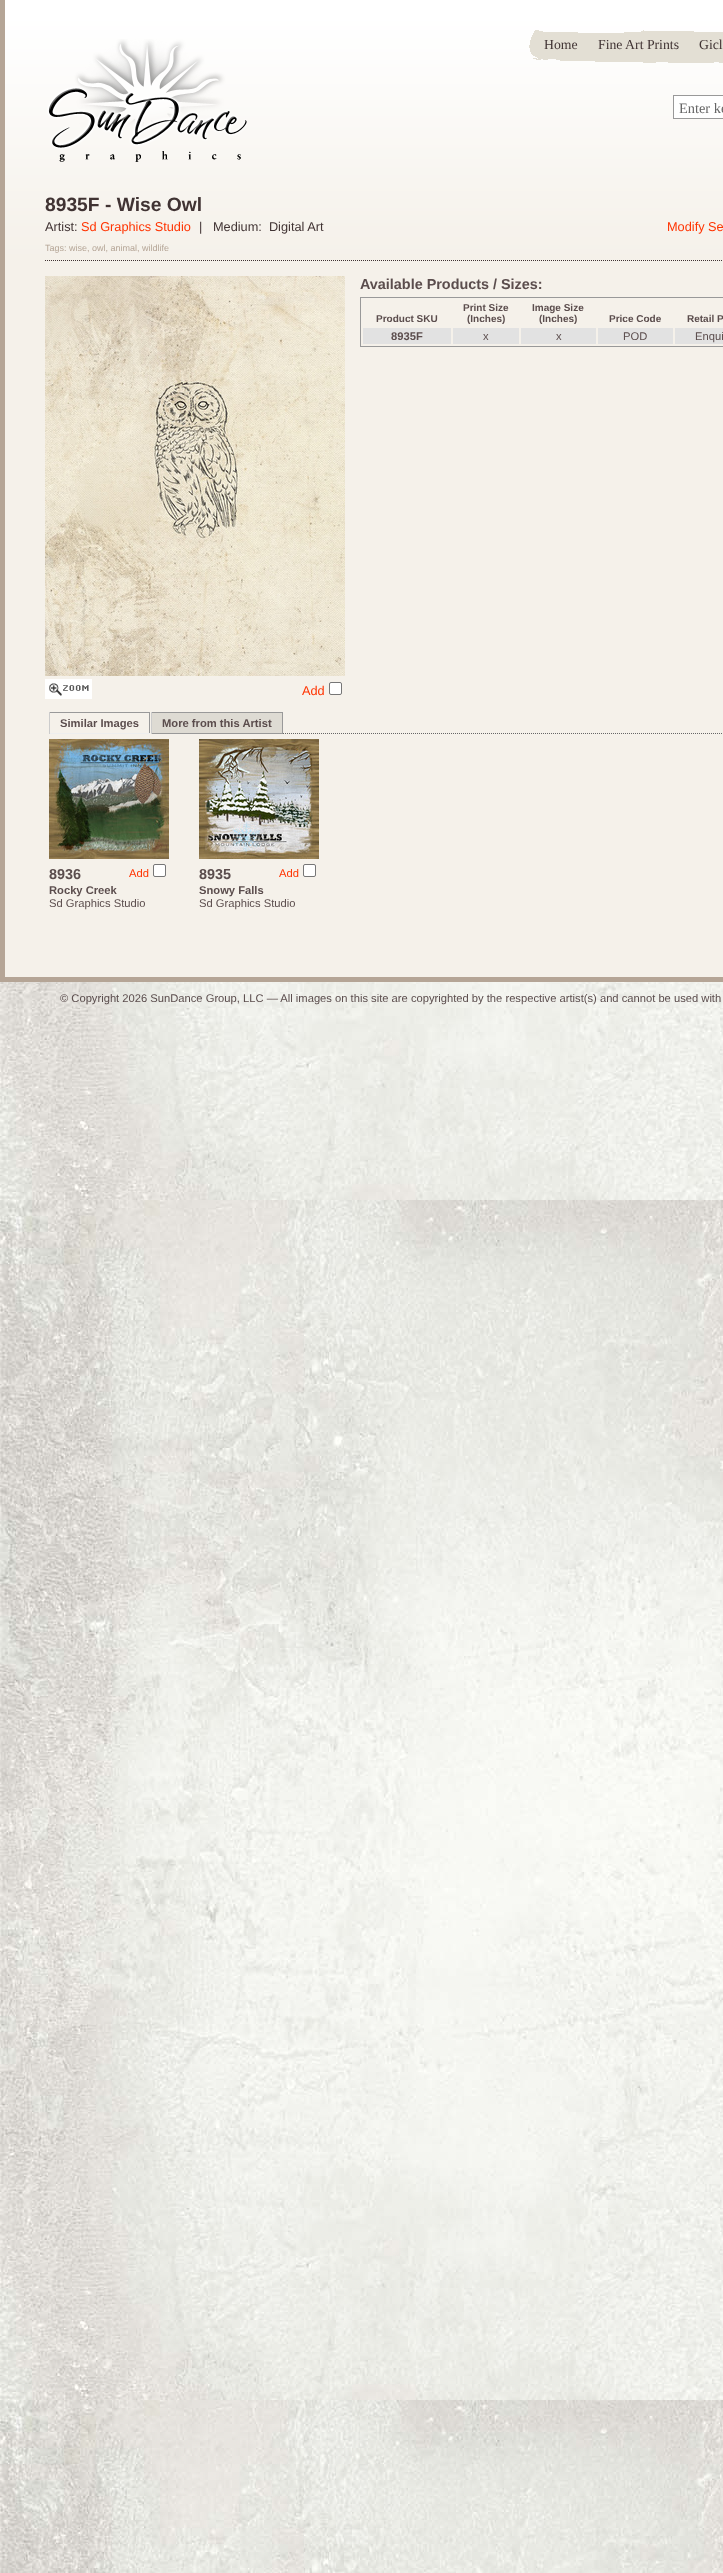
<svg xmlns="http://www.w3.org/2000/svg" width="723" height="2573">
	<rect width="100%" height="100%" fill="#FFFFFF" />
	<image x="0" y="982" width="723" height="1591" href="assets/img1.png" />
	<rect x="5" y="260" width="718" height="717" fill="#F5F1EA" />
	<image x="5" y="0" width="718" height="260" href="assets/img2.png" />
	<rect x="0" y="977" width="723" height="5" fill="#B5A596" />
	<rect x="0" y="0" width="5" height="982" fill="#B5A596" />
	<image x="47" y="39" width="200" height="123" href="assets/img3.png" />
	<image x="529" y="30" width="194" height="33" href="assets/img4.png" />
	<g font-family="Liberation Serif" font-size="13.75" fill="#403333">
		<text x="544" y="49">Home</text>
		<text x="598" y="49">Fine Art Prints</text>
		<text x="699" y="49">Gicl</text>
	</g>
	<rect x="673.5" y="95.5" width="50" height="23" fill="#FFFFFF" stroke="#999999" />
	<text x="679" y="113" font-family="Liberation Serif" font-size="14.4" fill="#666666">Enter ke</text>
	<path d="M45 260.5H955" fill="none" stroke="#403333" stroke-dasharray="1 1" />
	<text x="45" y="211" font-family="Liberation Sans" font-size="19.25" font-weight="700" fill="#403333">8935F - Wise Owl</text>
	<text x="45" y="231" font-family="Liberation Sans" font-size="12.75" fill="#403333">Artist:</text>
	<text x="81" y="231" font-family="Liberation Sans" font-size="12.75" fill="#FF3300">Sd Graphics Studio</text>
	<text x="199" y="231" font-family="Liberation Sans" font-size="12.75" fill="#403333" xml:space="preserve">|   Medium:  Digital Art</text>
	<text x="667" y="231" font-family="Liberation Sans" font-size="12.75" fill="#FF3300">Modify Se</text>
	<text x="45" y="251" font-family="Liberation Sans" font-size="9" fill="#B5A596">Tags: wise, owl, animal, wildlife</text>
	<text x="360" y="289" font-family="Liberation Sans" font-size="14.4" font-weight="700" fill="#5B4D4D">Available Products / Sizes:</text>
	<rect x="360.5" y="297.5" width="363" height="49" fill="none" stroke="#999999" />
	<g font-family="Liberation Sans" font-size="10" font-weight="700" fill="#5B4D4D">
		<text x="376" y="322">Product SKU</text>
		<text x="463" y="311">Print Size</text>
		<text x="467" y="322">(Inches)</text>
		<text x="532" y="311">Image Size</text>
		<text x="539" y="322">(Inches)</text>
		<text x="609" y="322">Price Code</text>
		<text x="687" y="322">Retail P</text>
	</g>
	<rect x="363" y="328" width="88" height="16" fill="#E2E2E2" />
	<text x="391" y="340" font-family="Liberation Sans" font-size="11.2" font-weight="700" fill="#5B4D4D">8935F</text>
	<rect x="453" y="328" width="66" height="16" fill="#E2E2E2" />
	<text x="483" y="340" font-family="Liberation Sans" font-size="11.2" fill="#5B4D4D">x</text>
	<rect x="521" y="328" width="75" height="16" fill="#E2E2E2" />
	<text x="556" y="340" font-family="Liberation Sans" font-size="11.2" fill="#5B4D4D">x</text>
	<rect x="598" y="328" width="75" height="16" fill="#E2E2E2" />
	<text x="623" y="340" font-family="Liberation Sans" font-size="11.2" fill="#5B4D4D">POD</text>
	<rect x="675" y="328" width="48" height="16" fill="#E2E2E2" />
	<text x="695" y="340" font-family="Liberation Sans" font-size="11.2" fill="#5B4D4D">Enqui</text>
	<image x="45" y="276" width="300" height="400" href="assets/img5.png" />
	<image x="45" y="679" width="47" height="20" href="assets/img6.png" />
	<text x="302" y="695" font-family="Liberation Sans" font-size="12.75" fill="#FF3300">Add</text>
	<rect x="329.5" y="682.5" width="12" height="12" rx="1.5" fill="#FFFFFF" stroke="#767676" />
	<rect x="49" y="712" width="101" height="1" fill="#999999" />
	<path d="M49 733.5H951" fill="none" stroke="#666666" stroke-dasharray="1 1" />
	<rect x="149" y="712" width="1" height="22" fill="#999999" />
	<rect x="49" y="733" width="101" height="1" fill="#EEEEEE" />
	<rect x="49" y="712" width="1" height="22" fill="#CCCCCC" />
	<text x="60" y="727" font-family="Liberation Sans" font-size="11.2" font-weight="700" fill="#5B4D4D">Similar Images</text>
	<rect x="152" y="713" width="130" height="20" fill="#DEDBD3" />
	<rect x="151" y="712" width="132" height="1" fill="#999999" />
	<rect x="282" y="712" width="1" height="22" fill="#999999" />
	<rect x="151" y="733" width="132" height="1" fill="#999999" />
	<rect x="151" y="712" width="1" height="22" fill="#CCCCCC" />
	<text x="162" y="727" font-family="Liberation Sans" font-size="11.2" font-weight="700" fill="#5B4D4D">More from this Artist</text>
	<image x="49" y="739" width="120" height="120" href="assets/img7.png" />
	<text x="49" y="879" font-family="Liberation Sans" font-size="14.4" font-weight="700" fill="#5B4D4D">8936</text>
	<text x="129" y="877" font-family="Liberation Sans" font-size="11.2" fill="#FF3300">Add</text>
	<rect x="153.5" y="864.5" width="12" height="12" rx="1.5" fill="#FFFFFF" stroke="#767676" />
	<text x="49" y="894" font-family="Liberation Sans" font-size="11.2" font-weight="700" fill="#5B4D4D">Rocky Creek</text>
	<text x="49" y="907" font-family="Liberation Sans" font-size="11.2" fill="#5B4D4D">Sd Graphics Studio</text>
	<image x="199" y="739" width="120" height="120" href="assets/img8.png" />
	<text x="199" y="879" font-family="Liberation Sans" font-size="14.4" font-weight="700" fill="#5B4D4D">8935</text>
	<text x="279" y="877" font-family="Liberation Sans" font-size="11.2" fill="#FF3300">Add</text>
	<rect x="303.5" y="864.5" width="12" height="12" rx="1.5" fill="#FFFFFF" stroke="#767676" />
	<text x="199" y="894" font-family="Liberation Sans" font-size="11.2" font-weight="700" fill="#5B4D4D">Snowy Falls</text>
	<g font-family="Liberation Sans" font-size="11.2" fill="#5B4D4D">
		<text x="199" y="907">Sd Graphics Studio</text>
		<text x="60" y="1002">© Copyright 2026 SunDance Group, LLC — All images on this site are copyrighted by the respective artist(s) and cannot be used with</text>
	</g>
</svg>
